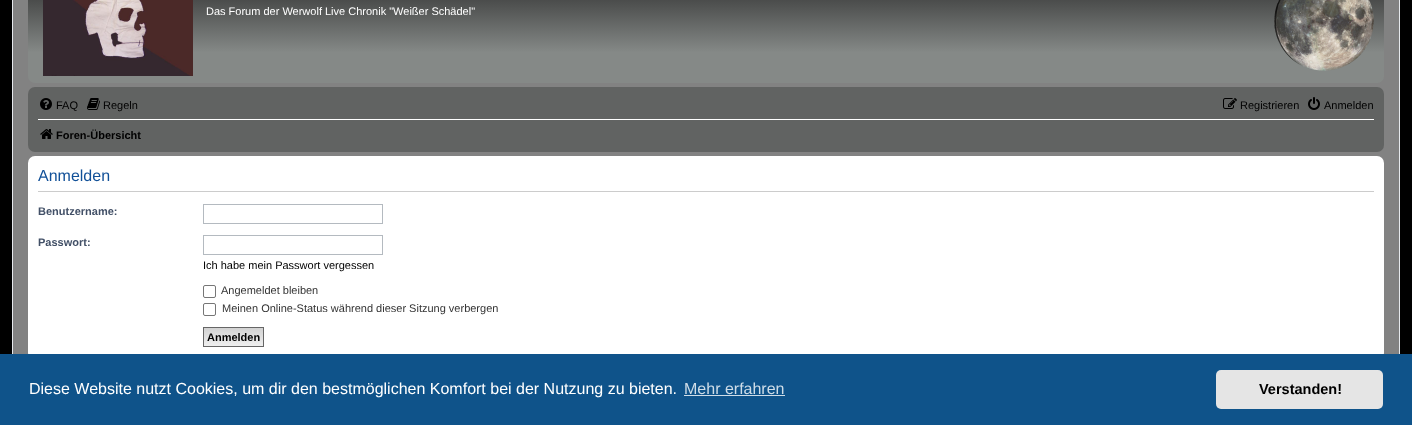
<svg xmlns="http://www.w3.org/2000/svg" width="1412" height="425">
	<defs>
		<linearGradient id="g1" gradientUnits="userSpaceOnUse" x1="706" y1="-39" x2="706" y2="83"><stop offset="0" stop-color="#000000" /><stop offset="0.02" stop-color="#222222" /><stop offset="0.75" stop-color="#858987" /><stop offset="1" stop-color="#858987" /></linearGradient>
		<linearGradient id="g2" gradientUnits="userSpaceOnUse" x1="234" y1="328" x2="234" y2="346"><stop offset="0" stop-color="#D2D2D2" /><stop offset="1" stop-color="#EFEFEF" /></linearGradient>
	</defs>
	<rect width="100%" height="100%" fill="#000000" />
	<rect x="13" y="0" width="1386" height="354" fill="#828282" />
	<rect x="12.5" y="-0.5" width="1387" height="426" fill="none" stroke="#E6E9ED" />
	<rect x="28" y="-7" width="1356" height="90" rx="7" fill="url(#g1)" />
	<image x="43" y="0" width="150" height="76" href="assets/img1.png" />
	<text x="206" y="15" font-family="Liberation Sans" font-size="11" fill="#FFFFFF">Das Forum der Werwolf Live Chronik "Weißer Schädel"</text>
	<image x="1274" y="0" width="100" height="71" href="assets/img2.png" />
	<rect x="28" y="87" width="1356" height="65" rx="7" fill="#616362" />
	<image x="40" y="98" width="12" height="12" href="assets/img3.png" />
	<text x="56" y="109" font-family="Liberation Sans" font-size="11" fill="#000000">FAQ</text>
	<image x="87" y="98" width="13" height="12" href="assets/img4.png" />
	<text x="103" y="109" font-family="Liberation Sans" font-size="11" fill="#000000">Regeln</text>
	<image x="1223" y="98" width="14" height="11" href="assets/img5.png" />
	<text x="1240" y="109" font-family="Liberation Sans" font-size="11" fill="#000000">Registrieren</text>
	<image x="1308" y="97" width="12" height="13" href="assets/img6.png" />
	<text x="1324" y="109" font-family="Liberation Sans" font-size="11" fill="#000000">Anmelden</text>
	<rect x="38" y="119" width="1336" height="1" fill="#FFFFFF" />
	<image x="40" y="129" width="13" height="10" href="assets/img7.png" />
	<text x="56" y="139" font-family="Liberation Sans" font-size="11" font-weight="700" fill="#000000">Foren-Übersicht</text>
	<rect x="28" y="156" width="1356" height="204" rx="7" fill="#FFFFFF" />
	<rect x="38" y="191" width="1336" height="1" fill="#CCCCCC" />
	<text x="38" y="181" font-family="Liberation Sans" font-size="16" fill="#115098">Anmelden</text>
	<text x="38" y="215" font-family="Liberation Sans" font-size="11" font-weight="700" fill="#425067">Benutzername:</text>
	<rect x="203.5" y="204.5" width="179" height="19" fill="none" stroke="#B4BAC0" />
	<text x="38" y="246" font-family="Liberation Sans" font-size="11" font-weight="700" fill="#425067">Passwort:</text>
	<rect x="203.5" y="235.5" width="179" height="19" fill="none" stroke="#B4BAC0" />
	<text x="203" y="269" font-family="Liberation Sans" font-size="11" fill="#000000">Ich habe mein Passwort vergessen</text>
	<rect x="203.5" y="285.5" width="12" height="12" rx="1.5" fill="none" stroke="#767676" />
	<text x="221" y="294" font-family="Liberation Sans" font-size="11" fill="#333333">Angemeldet bleiben</text>
	<rect x="203.5" y="303.5" width="12" height="12" rx="1.5" fill="none" stroke="#767676" />
	<text x="222" y="312" font-family="Liberation Sans" font-size="11" fill="#333333">Meinen Online-Status während dieser Sitzung verbergen</text>
	<rect x="204" y="328" width="59" height="18" fill="url(#g2)" />
	<rect x="203.5" y="327.5" width="60" height="19" fill="none" stroke="#666666" />
	<text x="207" y="341" font-family="Liberation Sans" font-size="11" font-weight="700" fill="#000000">Anmelden</text>
	<rect x="0" y="354" width="1412" height="71" fill="#0F538A" />
	<text x="29" y="394" font-family="Liberation Sans" font-size="16" fill="#FFFFFF">Diese Website nutzt Cookies, um dir den bestmöglichen Komfort bei der Nutzung zu bieten.</text>
	<text x="684" y="394" font-family="Liberation Sans" font-size="16" fill="#CFDDE8">Mehr erfahren</text>
	<rect x="684" y="395" width="101" height="1" fill="#CFDDE8" />
	<rect x="1216" y="370" width="167" height="39" rx="5" fill="#E5E5E5" />
	<text x="1259" y="394" font-family="Liberation Sans" font-size="14.5" font-weight="700" fill="#000000">Verstanden!</text>
</svg>
